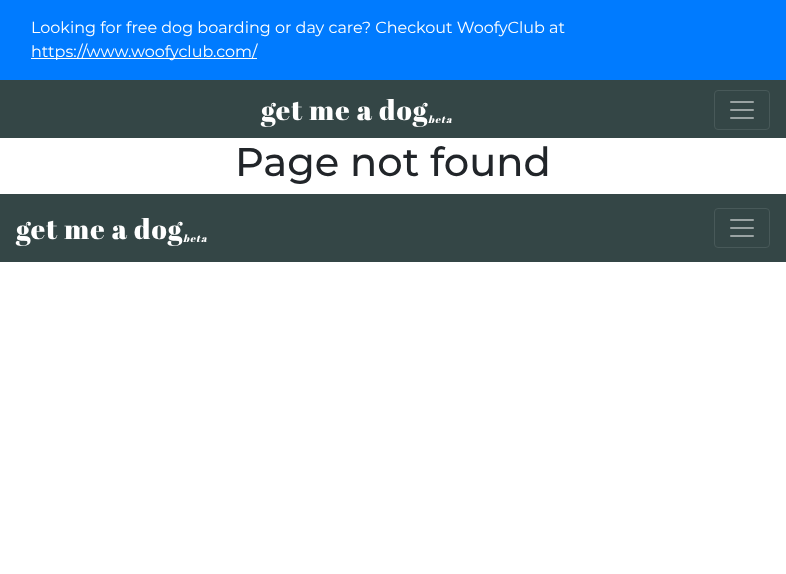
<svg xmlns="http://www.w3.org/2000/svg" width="786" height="574">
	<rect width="100%" height="100%" fill="#FFFFFF" />
	<rect x="0" y="0" width="786" height="80" fill="#007BFF" />
	<text x="31" y="33" font-family="Montserrat" font-size="16" fill="#FFFFFF">Looking for free dog boarding or day care? Checkout WoofyClub at</text>
	<rect x="31" y="58" width="226" height="1" fill="#FFFFFF" />
	<text x="31" y="57" font-family="Montserrat" font-size="16" fill="#FFFFFF">https://www.woofyclub.com/</text>
	<rect x="0" y="80" width="786" height="58" fill="#344646" />
	<text x="261" y="120" font-family="Abril Fatface" font-size="28" letter-spacing="1" fill="#FFFFFF">get me a dog</text>
	<text x="428" y="123" font-family="Abril Fatface" font-size="10" font-style="italic" letter-spacing="1" fill="#FFFFFF">beta</text>
	<rect x="714.5" y="90.5" width="55" height="39" rx="3.5" fill="none" stroke="#485959" />
	<image x="730" y="101" width="24" height="18" href="assets/img1.png" />
	<text x="235" y="176" font-family="Montserrat" font-size="40" font-weight="500" fill="#212529">Page not found</text>
	<rect x="0" y="194" width="786" height="68" fill="#344646" />
	<text x="16" y="239" font-family="Abril Fatface" font-size="28" letter-spacing="1" fill="#FFFFFF">get me a dog</text>
	<text x="183" y="242" font-family="Abril Fatface" font-size="10" font-style="italic" letter-spacing="1" fill="#FFFFFF">beta</text>
	<rect x="714.5" y="208.5" width="55" height="39" rx="3.5" fill="none" stroke="#485959" />
	<image x="730" y="219" width="24" height="18" href="assets/img1.png" />
</svg>
